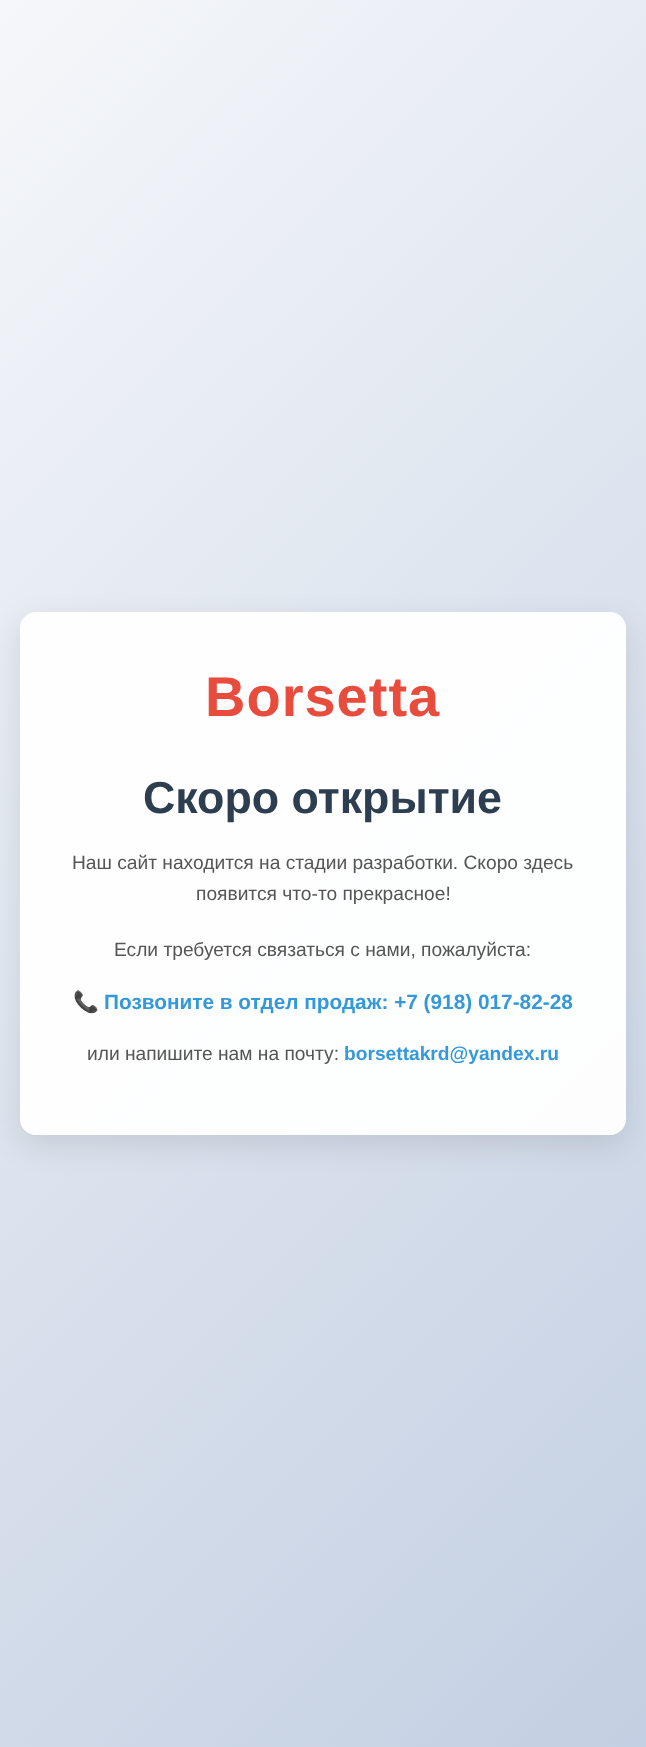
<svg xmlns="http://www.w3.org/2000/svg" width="646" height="1747">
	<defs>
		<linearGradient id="g1" gradientUnits="userSpaceOnUse" x1="-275" y1="275" x2="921" y2="1472"><stop offset="0" stop-color="#F5F7FA" /><stop offset="1" stop-color="#C3CFE2" /></linearGradient>
		<clipPath id="clip1"><path d="M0 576H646V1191H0ZM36 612H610C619 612 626 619 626 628V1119C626 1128 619 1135 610 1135H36C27 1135 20 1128 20 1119V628C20 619 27 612 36 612Z" clip-rule="evenodd" /></clipPath>
	</defs>
	<rect width="100%" height="100%" fill="#FFFFFF" />
	<rect x="0" y="0" width="646" height="1747" fill="url(#g1)" />
	<g clip-path="url(#clip1)">
		<rect x="20" y="622" width="606" height="523" rx="16" fill="#000000" fill-opacity="0.1" filter="blur(15px)" />
	</g>
	<rect x="20" y="612" width="606" height="523" rx="16" fill="#FFFFFF" fill-opacity="0.95" />
	<text x="205" y="716" font-family="Liberation Sans" font-size="56" font-weight="700" letter-spacing="1" fill="#E74C3C">Borsetta</text>
	<text x="143" y="813" font-family="Liberation Sans" font-size="44.75" font-weight="700" fill="#2C3E50">Скоро открытие</text>
	<g font-family="Liberation Sans" font-size="19.2" fill="#555555">
		<text x="72" y="869">Наш сайт находится на стадии разработки. Скоро здесь</text>
		<text x="196" y="900">появится что-то прекрасное!</text>
		<text x="114" y="956">Если требуется связаться с нами, пожалуйста:</text>
	</g>
	<text x="73" y="1009" font-family="Noto Color Emoji" font-size="20.8" font-weight="700" fill="#3498DB">📞</text>
	<text x="104" y="1009" font-family="Liberation Sans" font-size="20.8" font-weight="700" fill="#3498DB">Позвоните в отдел продаж: +7 (918) 017-82-28</text>
	<text x="87" y="1060" font-family="Liberation Sans" font-size="19.2" fill="#555555">или напишите нам на почту:</text>
	<text x="344" y="1060" font-family="Liberation Sans" font-size="19.2" font-weight="700" fill="#3498DB">borsettakrd@yandex.ru</text>
</svg>
